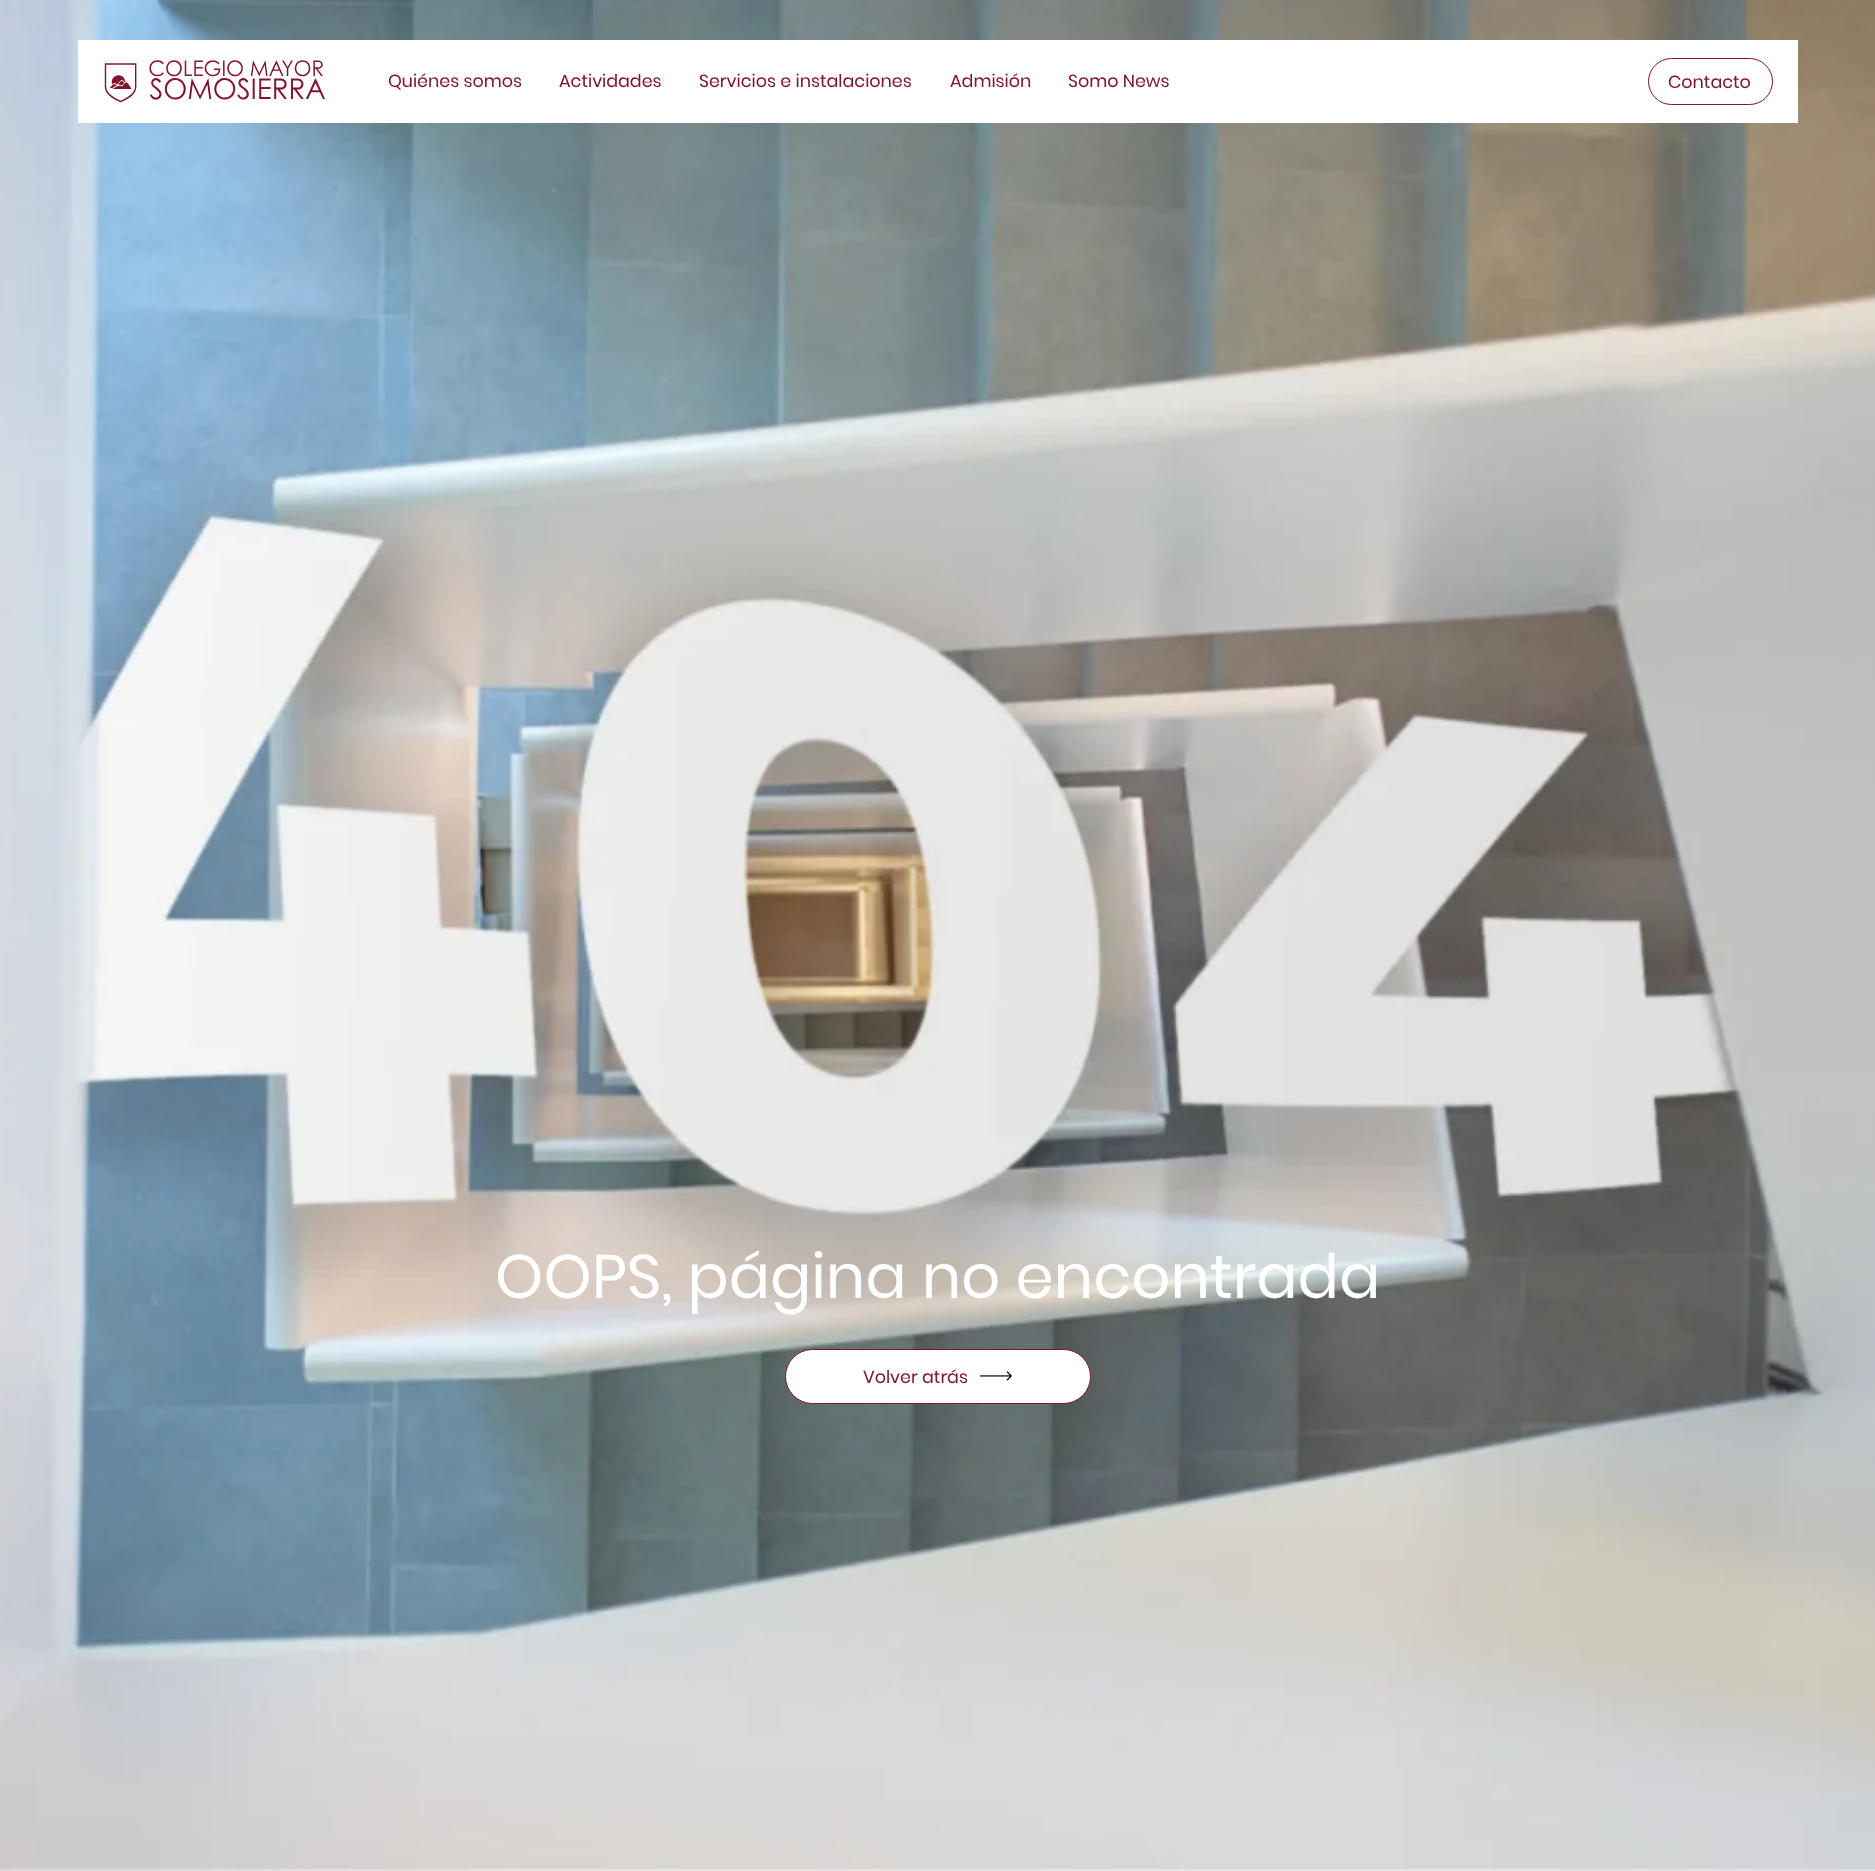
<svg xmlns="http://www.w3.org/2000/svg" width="1875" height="1871">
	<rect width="100%" height="100%" fill="#FFFFFF" />
	<image x="0" y="0" width="1875" height="1871" href="assets/img2.png" />
	<rect x="78" y="40" width="1720" height="83" fill="#FFFFFF" />
	<image x="104" y="60" width="221" height="43" href="assets/img1.png" />
	<g font-family="Poppins" font-size="17.5" fill="#80152B">
		<text x="388" y="87">Quiénes somos</text>
		<text x="559" y="87">Actividades</text>
		<text x="699" y="87">Servicios e instalaciones</text>
		<text x="950" y="87">Admisión</text>
		<text x="1068" y="87">Somo News</text>
	</g>
	<rect x="1648.5" y="58.5" width="124" height="46" rx="23" fill="none" stroke="#80152B" />
	<text x="1668" y="88" font-family="Poppins" font-size="17.5" fill="#80152B">Contacto</text>
	<text x="495" y="1298" font-family="Poppins" font-size="61.25" fill="#FFFFFF">OOPS, página no encontrada</text>
	<rect x="785.5" y="1349.5" width="305" height="54" rx="27" fill="#FFFFFF" stroke="#80152B" />
	<text x="863" y="1383" font-family="Poppins" font-size="17.5" fill="#80152B">Volver atrás</text>
	<image x="980" y="1371" width="32" height="10" href="assets/img3.png" />
</svg>
